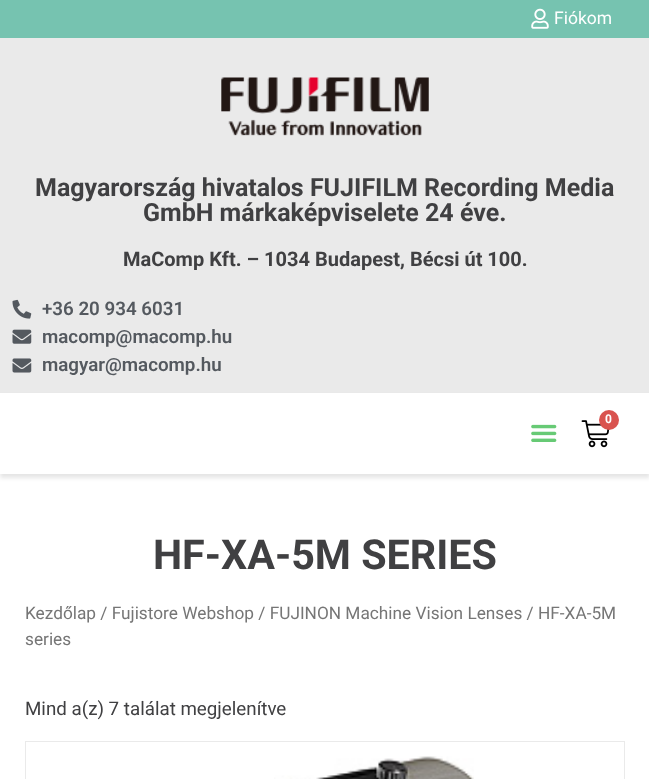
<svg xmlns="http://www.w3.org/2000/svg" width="649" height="779">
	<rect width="100%" height="100%" fill="#FFFFFF" />
	<rect x="0" y="0" width="649" height="38" fill="#76C3B0" />
	<image x="531" y="8" width="18" height="21" href="assets/img1.png" />
	<text x="554" y="24" font-family="Roboto" font-size="17.5" fill="#FFFFFF">Fiókom</text>
	<rect x="0" y="38" width="649" height="355" fill="#EAEAEA" />
	<image x="221" y="77" width="208" height="59" href="assets/img2.png" />
	<g font-family="Roboto" font-size="25" font-weight="700" fill="#404042">
		<text x="35" y="196">Magyarország hivatalos FUJIFILM Recording Media</text>
		<text x="143" y="221">GmbH márkaképviselete 24 éve.</text>
	</g>
	<text x="123" y="266" font-family="Roboto" font-size="20" font-weight="700" fill="#404042">MaComp Kft. – 1034 Budapest, Bécsi út 100.</text>
	<image x="12" y="299" width="20" height="20" href="assets/img3.png" />
	<text x="42" y="315" font-family="Roboto" font-size="18.75" font-weight="600" fill="#54595F">+36 20 934 6031</text>
	<image x="12" y="329" width="20" height="15" href="assets/img4.png" />
	<text x="42" y="343" font-family="Roboto" font-size="18.75" font-weight="600" fill="#54595F">macomp@macomp.hu</text>
	<image x="12" y="358" width="20" height="15" href="assets/img5.png" />
	<text x="42" y="371" font-family="Roboto" font-size="18.75" font-weight="600" fill="#54595F">magyar@macomp.hu</text>
	<rect x="0" y="396" width="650" height="82" fill="#000000" fill-opacity="0.1" filter="blur(2px)" />
	<rect x="0" y="393" width="649" height="81" fill="#FFFFFF" />
	<image x="581" y="420" width="29" height="28" href="assets/img6.png" />
	<circle cx="609" cy="420" r="10" fill="#D9534F" />
	<text x="605" y="423" font-family="Roboto" font-size="12" font-weight="700" fill="#FFFFFF">0</text>
	<image x="531" y="424" width="26" height="18" href="assets/img7.png" />
	<text x="153" y="569" font-family="Roboto" font-size="41.25" font-weight="700" fill="#404042">HF-XA-5M SERIES</text>
	<g font-family="Roboto" font-size="17.25" fill="#767676">
		<text x="25" y="619">Kezdőlap / Fujistore Webshop / FUJINON Machine Vision Lenses / HF-XA-5M</text>
		<text x="25" y="645">series</text>
	</g>
	<text x="25" y="715" font-family="Roboto" font-size="18.75" fill="#404042">Mind a(z) 7 találat megjelenítve</text>
	<rect x="25.5" y="741.5" width="599" height="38" fill="none" stroke="#EAEAEA" />
	<image x="274" y="756" width="200" height="23" href="assets/img8.png" />
</svg>
